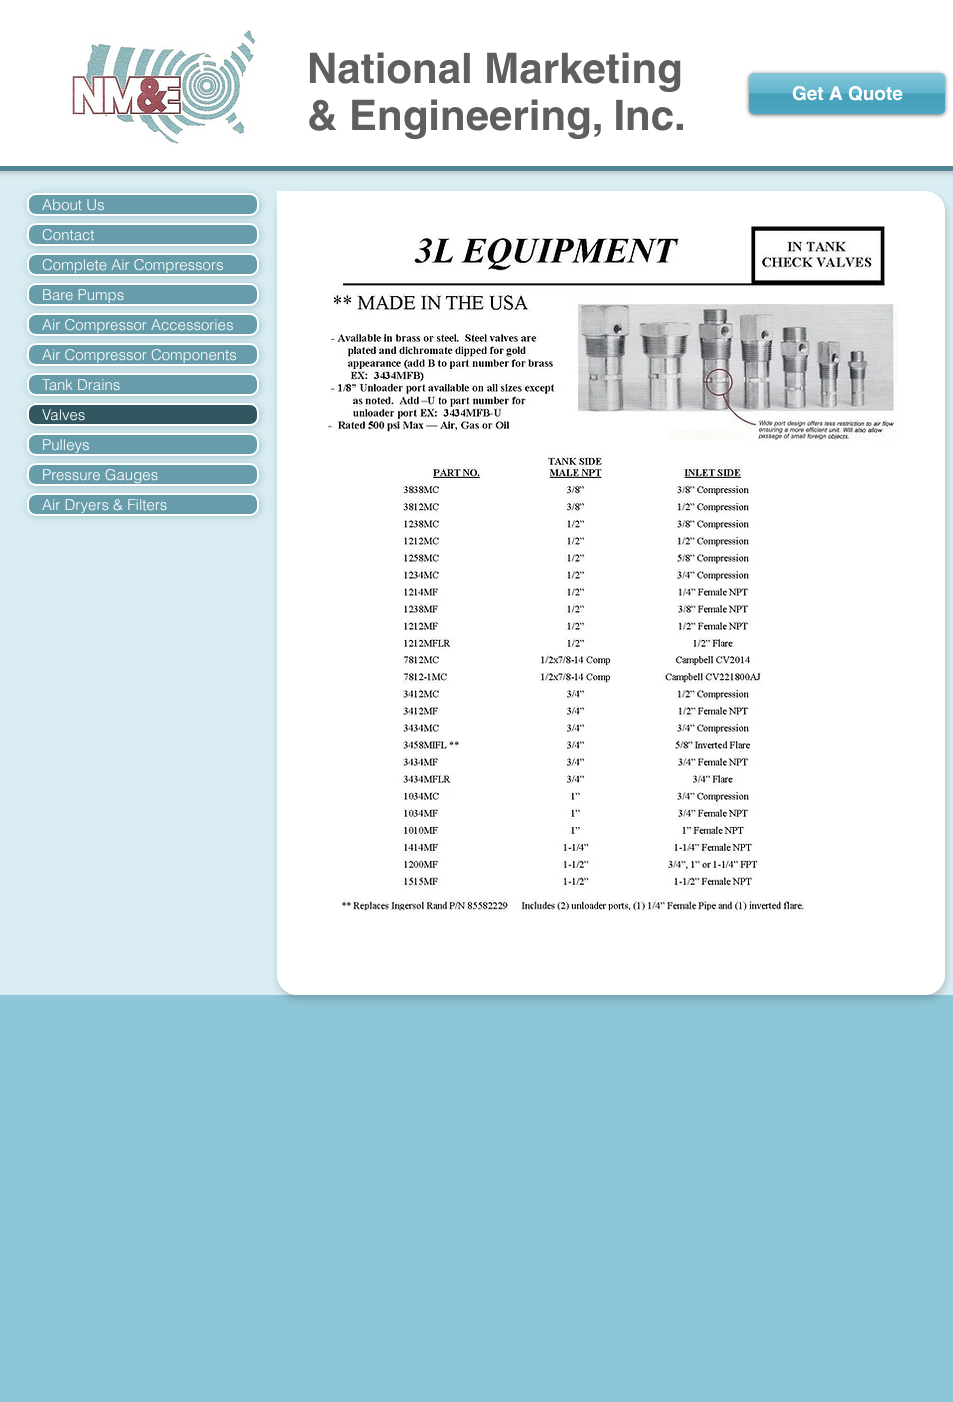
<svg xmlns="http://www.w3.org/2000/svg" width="953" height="1402">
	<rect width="100%" height="100%" fill="#8DC6D6" />
	<rect x="0" y="171" width="953" height="824" fill="#D8ECF1" />
	<rect x="-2" y="-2" width="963" height="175" fill="#A8A8A8" fill-opacity="0.7" filter="blur(2.5px)" />
	<rect x="0" y="0" width="953" height="166" fill="#FFFFFF" />
	<rect x="0" y="166" width="953" height="5" fill="#508796" />
	<image x="69" y="29" width="188" height="116" href="assets/img1.png" />
	<g font-family="helvetica" font-size="42" font-weight="700" fill="#605E5E">
		<text x="307" y="83">National Marketing</text>
		<text x="307" y="130">&amp; Engineering, Inc.</text>
	</g>
	<rect x="749" y="74" width="196" height="41" rx="5" fill="#000000" fill-opacity="0.6" filter="blur(2px)" />
	<rect x="749" y="73" width="196" height="41" rx="5" fill="#4CACC7" />
	<image x="749" y="73" width="196" height="41" href="assets/img2.png" />
	<text x="792" y="100" font-family="helvetica" font-size="19" font-weight="700" fill="#FFFFFF">Get A Quote</text>
	<rect x="28" y="194" width="232" height="23" rx="9" fill="#508796" fill-opacity="0.39" filter="blur(3px)" />
	<rect x="28" y="194" width="230" height="21" rx="8" fill="#679CAB" stroke="#FFFFFF" stroke-width="2" />
	<text x="42" y="210" font-family="helvetica" font-size="15" font-weight="300" fill="#FFFFFF">About Us</text>
	<rect x="28" y="224" width="232" height="23" rx="9" fill="#508796" fill-opacity="0.39" filter="blur(3px)" />
	<rect x="28" y="224" width="230" height="21" rx="8" fill="#679CAB" stroke="#FFFFFF" stroke-width="2" />
	<text x="42" y="240" font-family="helvetica" font-size="15" font-weight="300" fill="#FFFFFF">Contact</text>
	<rect x="28" y="254" width="232" height="23" rx="9" fill="#508796" fill-opacity="0.39" filter="blur(3px)" />
	<rect x="28" y="254" width="230" height="21" rx="8" fill="#679CAB" stroke="#FFFFFF" stroke-width="2" />
	<text x="42" y="270" font-family="helvetica" font-size="15" font-weight="300" fill="#FFFFFF">Complete Air Compressors</text>
	<rect x="28" y="284" width="232" height="23" rx="9" fill="#508796" fill-opacity="0.39" filter="blur(3px)" />
	<rect x="28" y="284" width="230" height="21" rx="8" fill="#679CAB" stroke="#FFFFFF" stroke-width="2" />
	<text x="42" y="300" font-family="helvetica" font-size="15" font-weight="300" fill="#FFFFFF">Bare Pumps</text>
	<rect x="28" y="314" width="232" height="23" rx="9" fill="#508796" fill-opacity="0.39" filter="blur(3px)" />
	<rect x="28" y="314" width="230" height="21" rx="8" fill="#679CAB" stroke="#FFFFFF" stroke-width="2" />
	<text x="42" y="330" font-family="helvetica" font-size="15" font-weight="300" fill="#FFFFFF">Air Compressor Accessories</text>
	<rect x="28" y="344" width="232" height="23" rx="9" fill="#508796" fill-opacity="0.39" filter="blur(3px)" />
	<rect x="28" y="344" width="230" height="21" rx="8" fill="#679CAB" stroke="#FFFFFF" stroke-width="2" />
	<text x="42" y="360" font-family="helvetica" font-size="15" font-weight="300" fill="#FFFFFF">Air Compressor Components</text>
	<rect x="28" y="374" width="232" height="23" rx="9" fill="#508796" fill-opacity="0.39" filter="blur(3px)" />
	<rect x="28" y="374" width="230" height="21" rx="8" fill="#679CAB" stroke="#FFFFFF" stroke-width="2" />
	<text x="42" y="390" font-family="helvetica" font-size="15" font-weight="300" fill="#FFFFFF">Tank Drains</text>
	<rect x="28" y="404" width="232" height="23" rx="9" fill="#508796" fill-opacity="0.39" filter="blur(3px)" />
	<rect x="28" y="404" width="230" height="21" rx="8" fill="#325761" stroke="#FFFFFF" stroke-width="2" />
	<text x="42" y="420" font-family="helvetica" font-size="15" font-weight="300" fill="#FFFFFF">Valves</text>
	<rect x="28" y="434" width="232" height="23" rx="9" fill="#508796" fill-opacity="0.39" filter="blur(3px)" />
	<rect x="28" y="434" width="230" height="21" rx="8" fill="#679CAB" stroke="#FFFFFF" stroke-width="2" />
	<text x="42" y="450" font-family="helvetica" font-size="15" font-weight="300" fill="#FFFFFF">Pulleys</text>
	<rect x="28" y="464" width="232" height="23" rx="9" fill="#508796" fill-opacity="0.39" filter="blur(3px)" />
	<rect x="28" y="464" width="230" height="21" rx="8" fill="#679CAB" stroke="#FFFFFF" stroke-width="2" />
	<text x="42" y="480" font-family="helvetica" font-size="15" font-weight="300" fill="#FFFFFF">Pressure Gauges</text>
	<rect x="28" y="494" width="232" height="23" rx="9" fill="#508796" fill-opacity="0.39" filter="blur(3px)" />
	<rect x="28" y="494" width="230" height="21" rx="8" fill="#679CAB" stroke="#FFFFFF" stroke-width="2" />
	<text x="42" y="510" font-family="helvetica" font-size="15" font-weight="300" fill="#FFFFFF">Air Dryers &amp; Filters</text>
	<rect x="278" y="195" width="668" height="804" rx="20" fill="#000000" fill-opacity="0.18" filter="blur(3.5px)" />
	<path d="M277 191H925C936 191 945 200 945 211V975C945 986 936 995 925 995H297C286 995 277 986 277 975Z" fill="#FFFFFF" />
	<image x="328" y="224" width="570" height="688" href="assets/img3.png" />
</svg>
